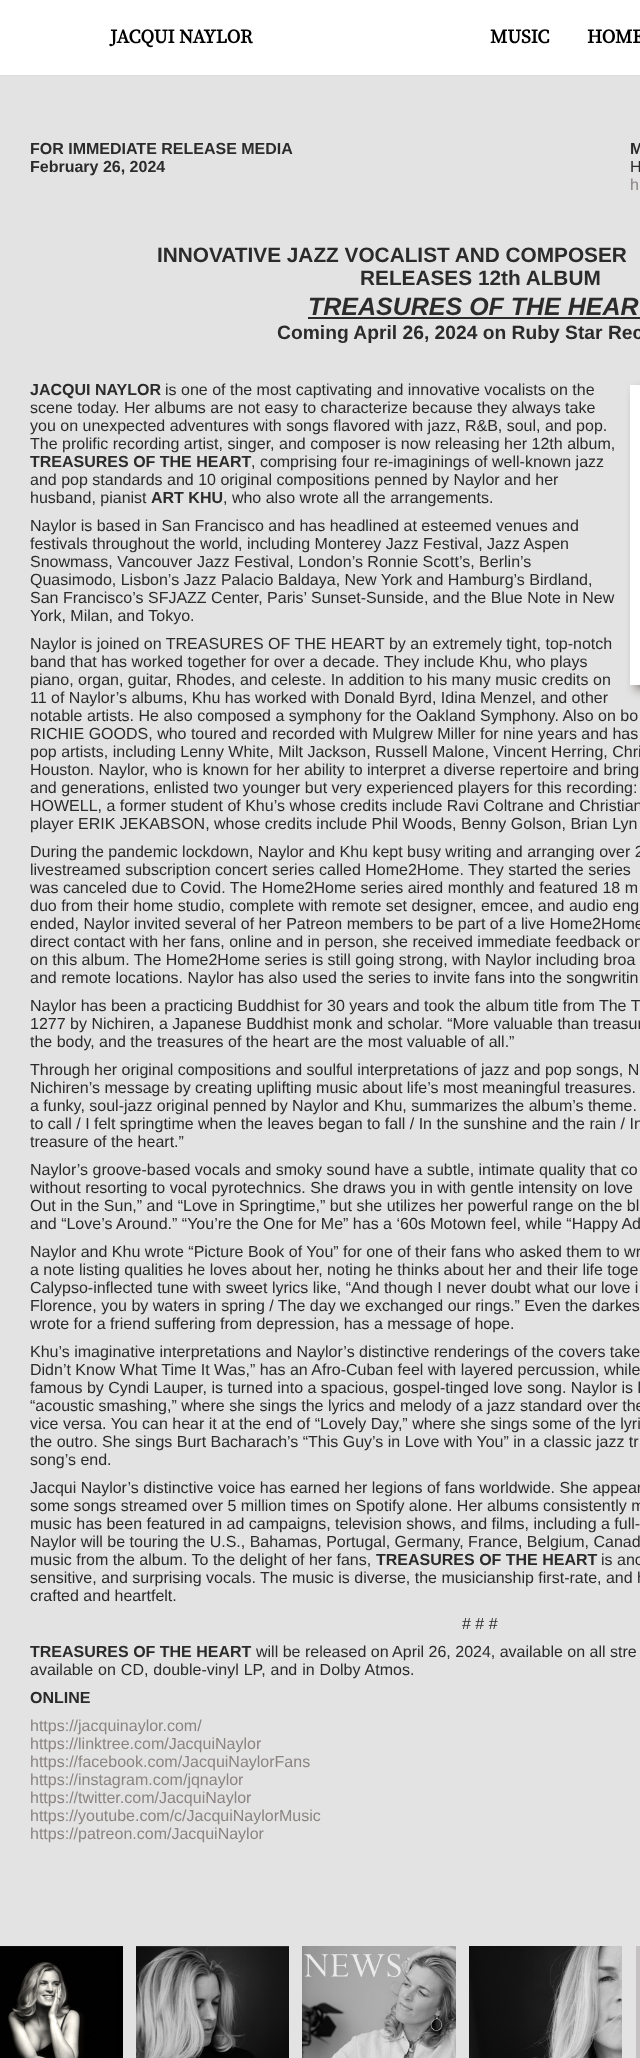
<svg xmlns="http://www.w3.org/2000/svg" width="640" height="2058">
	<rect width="100%" height="100%" fill="#E3E3E3" />
	<rect x="0" y="75" width="640" height="1" fill="#DDDDDD" />
	<rect x="0" y="0" width="640" height="75" fill="#FFFFFF" />
	<g font-family="Source Serif Pro" font-size="19.25" font-weight="700" fill="#000000">
		<text x="110" y="43">JACQUI NAYLOR</text>
		<text x="490" y="43">MUSIC</text>
		<text x="587" y="43">HOME</text>
	</g>
	<g font-family="Liberation Sans" font-size="16" font-weight="700" fill="#2C2B2B">
		<text x="30" y="154">FOR IMMEDIATE RELEASE MEDIA</text>
		<text x="30" y="172">February 26, 2024</text>
		<text x="630" y="154">M</text>
	</g>
	<text x="630" y="172" font-family="Liberation Sans" font-size="16" fill="#2C2B2B">H</text>
	<text x="630" y="190" font-family="Liberation Sans" font-size="16" fill="#8A8482">h</text>
	<g font-family="Liberation Sans" font-size="20.8" font-weight="700" fill="#2C2B2B">
		<text x="157" y="262">INNOVATIVE JAZZ VOCALIST AND COMPOSER</text>
		<text x="360" y="285">RELEASES 12th ALBUM</text>
	</g>
	<text x="308" y="315" font-family="Liberation Sans" font-size="25" font-weight="700" font-style="italic" fill="#2C2B2B">TREASURES OF THE HEAR</text>
	<rect x="308" y="317" width="332" height="2" fill="#2C2B2B" />
	<text x="277" y="339" font-family="Liberation Sans" font-size="19.25" font-weight="700" fill="#2C2B2B">Coming April 26, 2024 on Ruby Star Rec</text>
	<text x="30" y="395" font-family="Liberation Sans" font-size="16" font-weight="700" fill="#2C2B2B">JACQUI NAYLOR</text>
	<text x="165" y="395" font-family="Liberation Sans" font-size="16" fill="#2C2B2B">is one of the most captivating and innovative vocalists on the</text>
	<rect x="635" y="390" width="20" height="300" fill="#8A8482" filter="blur(5px)" />
	<rect x="630" y="385" width="10" height="300" fill="#FFFFFF" />
	<g font-family="Liberation Sans" font-size="16" fill="#2C2B2B">
		<text x="30" y="413">scene today. Her albums are not easy to characterize because they always take</text>
		<text x="30" y="431">you on unexpected adventures with songs flavored with jazz, R&amp;B, soul, and pop.</text>
		<text x="30" y="449">The prolific recording artist, singer, and composer is now releasing her 12th album,</text>
	</g>
	<text x="30" y="467" font-family="Liberation Sans" font-size="16" font-weight="700" fill="#2C2B2B">TREASURES OF THE HEART</text>
	<g font-family="Liberation Sans" font-size="16" fill="#2C2B2B">
		<text x="251" y="467">, comprising four re-imaginings of well-known jazz</text>
		<text x="30" y="485">and pop standards and 10 original compositions penned by Naylor and her</text>
		<text x="30" y="503">husband, pianist</text>
	</g>
	<text x="151" y="503" font-family="Liberation Sans" font-size="16" font-weight="700" fill="#2C2B2B">ART KHU</text>
	<g font-family="Liberation Sans" font-size="16" fill="#2C2B2B">
		<text x="223" y="503">, who also wrote all the arrangements.</text>
		<text x="30" y="531">Naylor is based in San Francisco and has headlined at esteemed venues and</text>
		<text x="30" y="549">festivals throughout the world, including Monterey Jazz Festival, Jazz Aspen</text>
		<text x="30" y="567">Snowmass, Vancouver Jazz Festival, London’s Ronnie Scott’s, Berlin’s</text>
		<text x="30" y="585">Quasimodo, Lisbon’s Jazz Palacio Baldaya, New York and Hamburg’s Birdland,</text>
		<text x="30" y="603">San Francisco’s SFJAZZ Center, Paris’ Sunset-Sunside, and the Blue Note in New</text>
		<text x="30" y="621">York, Milan, and Tokyo.</text>
		<text x="30" y="649">Naylor is joined on TREASURES OF THE HEART by an extremely tight, top-notch</text>
		<text x="30" y="667">band that has worked together for over a decade. They include Khu, who plays</text>
		<text x="30" y="685">piano, organ, guitar, Rhodes, and celeste. In addition to his many music credits on</text>
		<text x="30" y="703">11 of Naylor’s albums, Khu has worked with Donald Byrd, Idina Menzel, and other</text>
		<text x="30" y="721">notable artists. He also composed a symphony for the Oakland Symphony. Also on bo</text>
		<text x="30" y="739">RICHIE GOODS, who toured and recorded with Mulgrew Miller for nine years and has</text>
		<text x="30" y="757">pop artists, including Lenny White, Milt Jackson, Russell Malone, Vincent Herring, Chri</text>
		<text x="30" y="775">Houston. Naylor, who is known for her ability to interpret a diverse repertoire and bring</text>
		<text x="30" y="793">and generations, enlisted two younger but very experienced players for this recording:</text>
		<text x="30" y="811">HOWELL, a former student of Khu’s whose credits include Ravi Coltrane and Christian</text>
		<text x="30" y="829">player ERIK JEKABSON, whose credits include Phil Woods, Benny Golson, Brian Lyn</text>
		<text x="30" y="857">During the pandemic lockdown, Naylor and Khu kept busy writing and arranging over 2</text>
		<text x="30" y="875">livestreamed subscription concert series called Home2Home. They started the series</text>
		<text x="30" y="893">was canceled due to Covid. The Home2Home series aired monthly and featured 18 m</text>
		<text x="30" y="911">duo from their home studio, complete with remote set designer, emcee, and audio eng</text>
		<text x="30" y="929">ended, Naylor invited several of her Patreon members to be part of a live Home2Home</text>
		<text x="30" y="947">direct contact with her fans, online and in person, she received immediate feedback on</text>
		<text x="30" y="965">on this album. The Home2Home series is still going strong, with Naylor including broa</text>
		<text x="30" y="983">and remote locations. Naylor has also used the series to invite fans into the songwritin</text>
		<text x="30" y="1011">Naylor has been a practicing Buddhist for 30 years and took the album title from The T</text>
		<text x="30" y="1029">1277 by Nichiren, a Japanese Buddhist monk and scholar. “More valuable than treasur</text>
		<text x="30" y="1047">the body, and the treasures of the heart are the most valuable of all.”</text>
		<text x="30" y="1075">Through her original compositions and soulful interpretations of jazz and pop songs, N</text>
		<text x="30" y="1093">Nichiren’s message by creating uplifting music about life’s most meaningful treasures.</text>
		<text x="30" y="1111">a funky, soul-jazz original penned by Naylor and Khu, summarizes the album’s theme.</text>
		<text x="30" y="1129">to call / I felt springtime when the leaves began to fall / In the sunshine and the rain / In</text>
		<text x="30" y="1147">treasure of the heart.”</text>
		<text x="30" y="1175">Naylor’s groove-based vocals and smoky sound have a subtle, intimate quality that co</text>
		<text x="30" y="1193">without resorting to vocal pyrotechnics. She draws you in with gentle intensity on love</text>
		<text x="30" y="1211">Out in the Sun,” and “Love in Springtime,” but she utilizes her powerful range on the bl</text>
		<text x="30" y="1229">and “Love’s Around.” “You’re the One for Me” has a ‘60s Motown feel, while “Happy Ad</text>
		<text x="30" y="1257">Naylor and Khu wrote “Picture Book of You” for one of their fans who asked them to wr</text>
		<text x="30" y="1275">a note listing qualities he loves about her, noting he thinks about her and their life toge</text>
		<text x="30" y="1293">Calypso-inflected tune with sweet lyrics like, “And though I never doubt what our love i</text>
		<text x="30" y="1311">Florence, you by waters in spring / The day we exchanged our rings.” Even the darkes</text>
		<text x="30" y="1329">wrote for a friend suffering from depression, has a message of hope.</text>
		<text x="30" y="1357">Khu’s imaginative interpretations and Naylor’s distinctive renderings of the covers take</text>
		<text x="30" y="1375">Didn’t Know What Time It Was,” has an Afro-Cuban feel with layered percussion, while</text>
		<text x="30" y="1393">famous by Cyndi Lauper, is turned into a spacious, gospel-tinged love song. Naylor is k</text>
		<text x="30" y="1411">“acoustic smashing,” where she sings the lyrics and melody of a jazz standard over the</text>
		<text x="30" y="1429">vice versa. You can hear it at the end of “Lovely Day,” where she sings some of the lyri</text>
		<text x="30" y="1447">the outro. She sings Burt Bacharach’s “This Guy’s in Love with You” in a classic jazz tr</text>
		<text x="30" y="1465">song’s end.</text>
		<text x="30" y="1493">Jacqui Naylor’s distinctive voice has earned her legions of fans worldwide. She appear</text>
		<text x="30" y="1511">some songs streamed over 5 million times on Spotify alone. Her albums consistently m</text>
		<text x="30" y="1529">music has been featured in ad campaigns, television shows, and films, including a full-</text>
		<text x="30" y="1547">Naylor will be touring the U.S., Bahamas, Portugal, Germany, France, Belgium, Canad</text>
		<text x="30" y="1565">music from the album. To the delight of her fans,</text>
	</g>
	<text x="376" y="1565" font-family="Liberation Sans" font-size="16" font-weight="700" fill="#2C2B2B">TREASURES OF THE HEART</text>
	<g font-family="Liberation Sans" font-size="16" fill="#2C2B2B">
		<text x="601" y="1565">is ano</text>
		<text x="30" y="1583">sensitive, and surprising vocals. The music is diverse, the musicianship first-rate, and h</text>
		<text x="30" y="1601">crafted and heartfelt.</text>
		<text x="462" y="1629"># # #</text>
	</g>
	<text x="30" y="1657" font-family="Liberation Sans" font-size="16" font-weight="700" fill="#2C2B2B">TREASURES OF THE HEART</text>
	<g font-family="Liberation Sans" font-size="16" fill="#2C2B2B">
		<text x="256" y="1657">will be released on April 26, 2024, available on all stre</text>
		<text x="30" y="1675" word-spacing="0.5">available on CD, double-vinyl LP, and in Dolby Atmos.</text>
	</g>
	<text x="30" y="1703" font-family="Liberation Sans" font-size="16" font-weight="700" fill="#2C2B2B">ONLINE</text>
	<g font-family="Liberation Sans" font-size="16" fill="#8A8482">
		<text x="30" y="1731">https://jacquinaylor.com/</text>
		<text x="30" y="1749">https://linktree.com/JacquiNaylor</text>
		<text x="30" y="1767">https://facebook.com/JacquiNaylorFans</text>
		<text x="30" y="1785">https://instagram.com/jqnaylor</text>
		<text x="30" y="1803">https://twitter.com/JacquiNaylor</text>
		<text x="30" y="1821">https://youtube.com/c/JacquiNaylorMusic</text>
		<text x="30" y="1839">https://patreon.com/JacquiNaylor</text>
	</g>
	<image x="0" y="1946" width="123" height="112" href="assets/img1.png" />
	<image x="136" y="1946" width="153" height="112" href="assets/img2.png" />
	<image x="302" y="1946" width="154" height="112" href="assets/img3.png" />
	<image x="469" y="1946" width="153" height="112" href="assets/img4.png" />
	<rect x="636" y="1946" width="4" height="112" fill="#C3C1C2" />
</svg>
